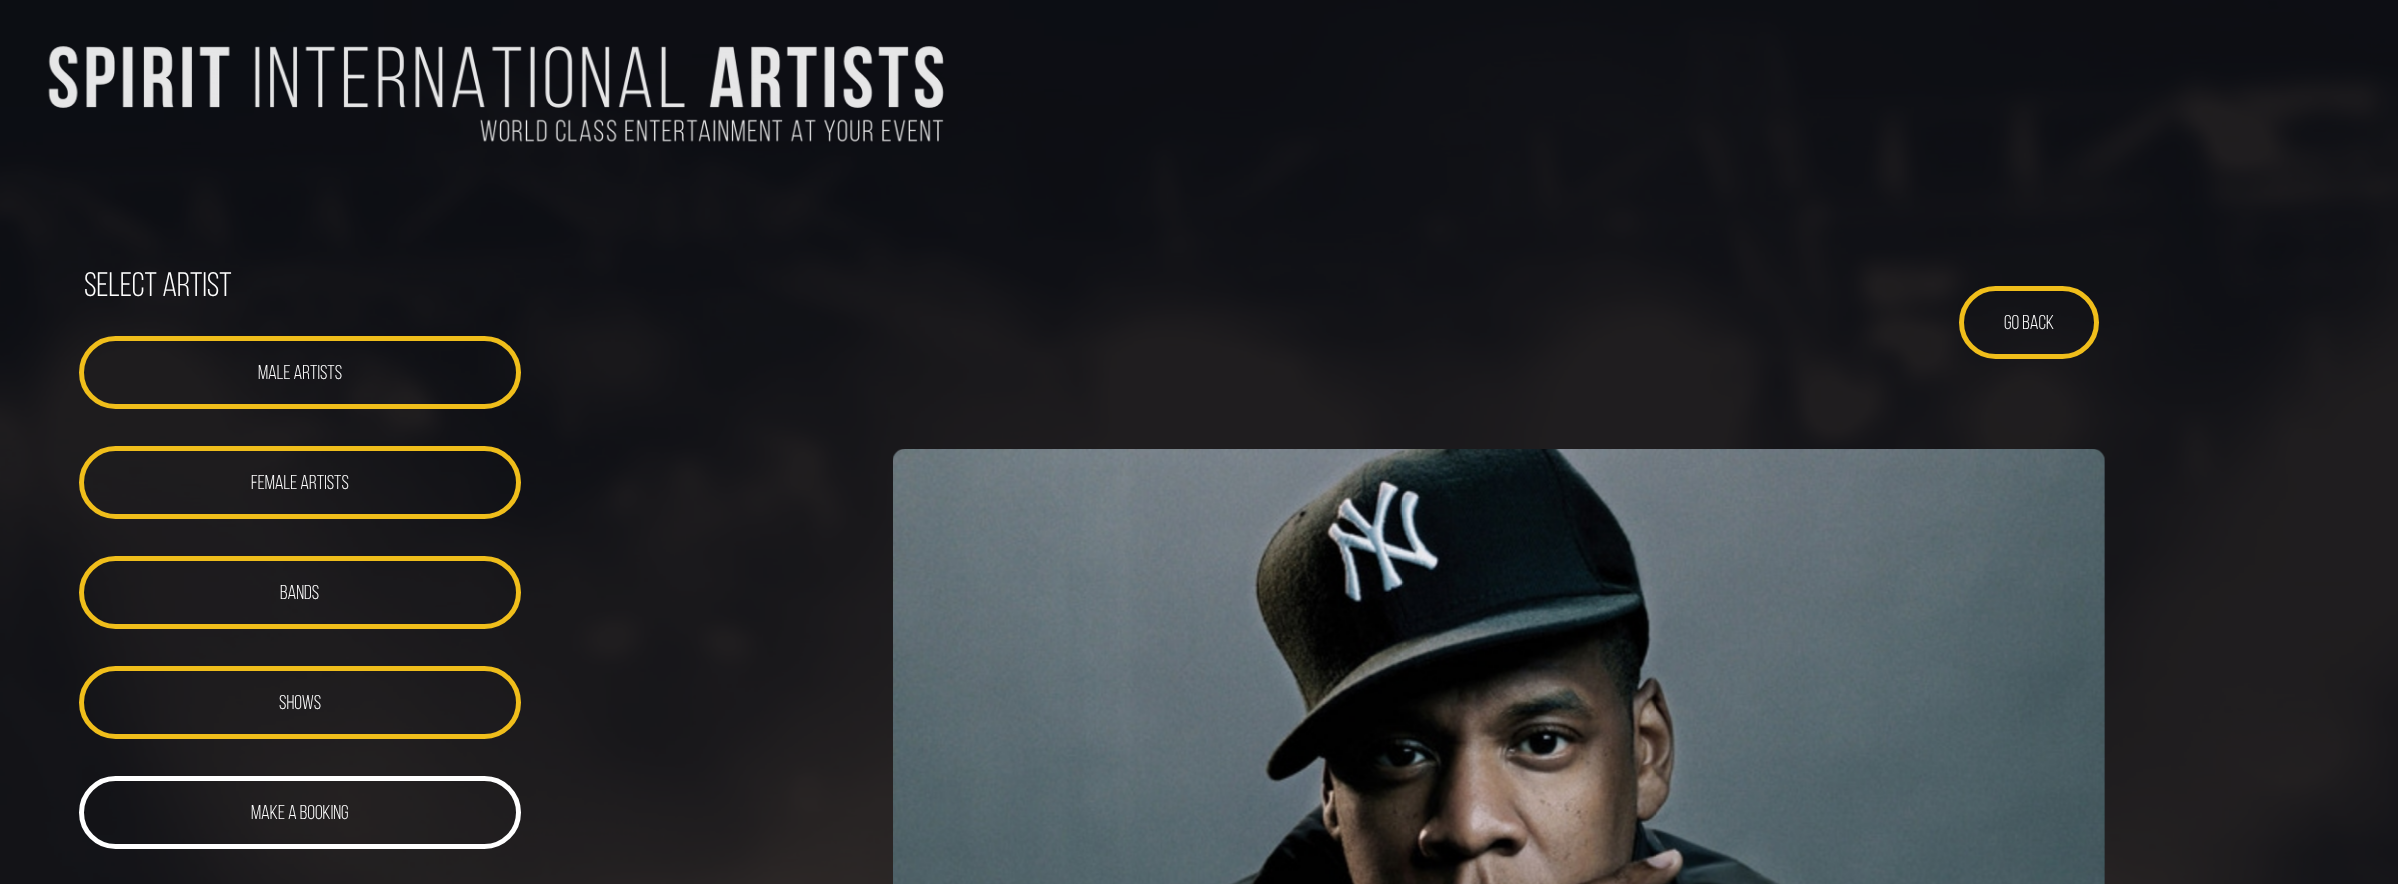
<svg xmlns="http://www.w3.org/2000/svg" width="2398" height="884">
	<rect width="100%" height="100%" fill="#FFFFFF" />
	<image x="0" y="0" width="2398" height="884" href="assets/img1.png" />
	<image x="48" y="46" width="896" height="96" href="assets/img2.png" />
	<text x="84" y="296" font-family="Bebas Neue" font-size="34" fill="#FFFFFF">Select Artist</text>
	<rect x="81.5" y="338.5" width="437" height="68" rx="34" fill="none" stroke="#F0BE1B" stroke-width="5" />
	<text x="258" y="379" font-family="Bebas Neue" font-size="20" fill="#FFFFFF">MALE ARTISTS</text>
	<rect x="81.5" y="448.5" width="437" height="68" rx="34" fill="none" stroke="#F0BE1B" stroke-width="5" />
	<text x="251" y="489" font-family="Bebas Neue" font-size="20" fill="#FFFFFF">FEMALE ARTISTS</text>
	<rect x="81.5" y="558.5" width="437" height="68" rx="34" fill="none" stroke="#F0BE1B" stroke-width="5" />
	<text x="280" y="599" font-family="Bebas Neue" font-size="20" fill="#FFFFFF">BANDS</text>
	<rect x="81.5" y="668.5" width="437" height="68" rx="34" fill="none" stroke="#F0BE1B" stroke-width="5" />
	<text x="279" y="709" font-family="Bebas Neue" font-size="20" fill="#FFFFFF">SHOWS</text>
	<rect x="81.5" y="778.5" width="437" height="68" rx="34" fill="none" stroke="#FFFFFF" stroke-width="5" />
	<text x="251" y="819" font-family="Bebas Neue" font-size="20" fill="#FFFFFF">MAKE A BOOKING</text>
	<rect x="1961.5" y="288.5" width="135" height="68" rx="34" fill="none" stroke="#F0BE1B" stroke-width="5" />
	<text x="2004" y="329" font-family="Bebas Neue" font-size="20" fill="#FFFFFF">GO BACK</text>
	<image x="893" y="449" width="1212" height="435" href="assets/img3.png" />
</svg>
